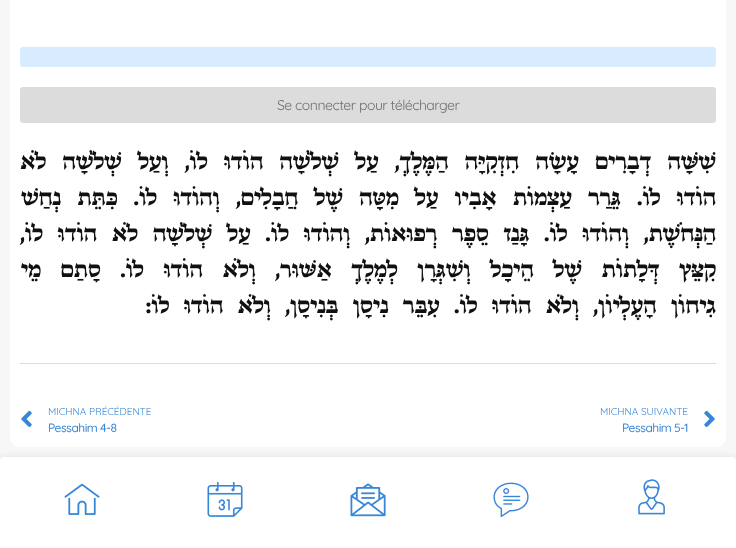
<svg xmlns="http://www.w3.org/2000/svg" width="736" height="548">
	<rect width="100%" height="100%" fill="#F7F7F7" />
	<rect x="10" y="-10" width="716" height="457" rx="10" fill="#FFFFFF" />
	<rect x="20" y="47" width="696" height="20" rx="3" fill="#D8EBFF" />
	<rect x="20" y="87" width="696" height="36" rx="3" fill="#DCDCDC" />
	<text x="277" y="110" font-family="Quicksand" font-size="14" letter-spacing="-0.5" fill="#707070">Se connecter pour télécharger</text>
	<g font-family="Bona Nova" font-size="24" font-weight="700" direction="rtl" fill="#101010">
		<text x="716" y="169" word-spacing="9.75">שִׁשָּׁה דְבָרִים עָשָׂה חִזְקִיָּה הַמֶּלֶךְ, עַל שְׁלֹשָׁה הוֹדוּ לוֹ, וְעַל שְׁלֹשָׁה לֹא</text>
		<text x="716" y="205" word-spacing="9.75">הוֹדוּ לוֹ. גֵּרַר עַצְמוֹת אָבִיו עַל מִטָּה שֶׁל חֲבָלִים, וְהוֹדוּ לוֹ. כִּתֵּת נְחַשׁ</text>
		<text x="716" y="241" word-spacing="8.4">הַנְּחֹשֶׁת, וְהוֹדוּ לוֹ. גָּנַז סֵפֶר רְפוּאוֹת, וְהוֹדוּ לוֹ. עַל שְׁלֹשָׁה לֹא הוֹדוּ לוֹ,</text>
		<text x="716" y="277" word-spacing="13.25">קִצֵּץ דְּלָתוֹת שֶׁל הֵיכָל וְשִׁגְּרָן לְמֶלֶךְ אַשּׁוּר, וְלֹא הוֹדוּ לוֹ. סָתַם מֵי</text>
		<text x="716" y="313" word-spacing="8">גִיחוֹן הָעֶלְיוֹן, וְלֹא הוֹדוּ לוֹ. עִבֵּר נִיסָן בְּנִיסָן, וְלֹא הוֹדוּ לוֹ:</text>
	</g>
	<rect x="20" y="363" width="696" height="1" fill="#DDDDDD" />
	<image x="704" y="410" width="11" height="18" href="assets/img1.png" />
	<text x="600" y="415" font-family="Quicksand" font-size="10" fill="#3886D7">MICHNA SUIVANTE</text>
	<text x="622" y="432" font-family="Quicksand" font-size="12" font-weight="500" letter-spacing="-0.5" fill="#3886D7">Pessahim 5-1</text>
	<text x="48" y="415" font-family="Quicksand" font-size="10" fill="#3886D7">MICHNA PRÉCÉDENTE</text>
	<text x="48" y="432" font-family="Quicksand" font-size="12" font-weight="500" letter-spacing="-0.5" fill="#3886D7">Pessahim 4-8</text>
	<image x="21" y="410" width="11" height="18" href="assets/img2.png" />
	<rect x="0" y="458" width="736" height="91" rx="3" fill="#000000" fill-opacity="0.1" filter="blur(4px)" />
	<path d="M3 457H733C734.5 457 736 458.5 736 460V548H0V460C0 458.5 1.5 457 3 457Z" fill="#FFFFFF" />
	<image x="638" y="479" width="27" height="36" href="assets/img3.png" />
	<image x="493" y="482" width="36" height="36" href="assets/img4.png" />
	<image x="350" y="483" width="36" height="34" href="assets/img5.png" />
	<image x="207" y="481" width="36" height="36" href="assets/img6.png" />
	<image x="64" y="483" width="36" height="32" href="assets/img7.png" />
</svg>
